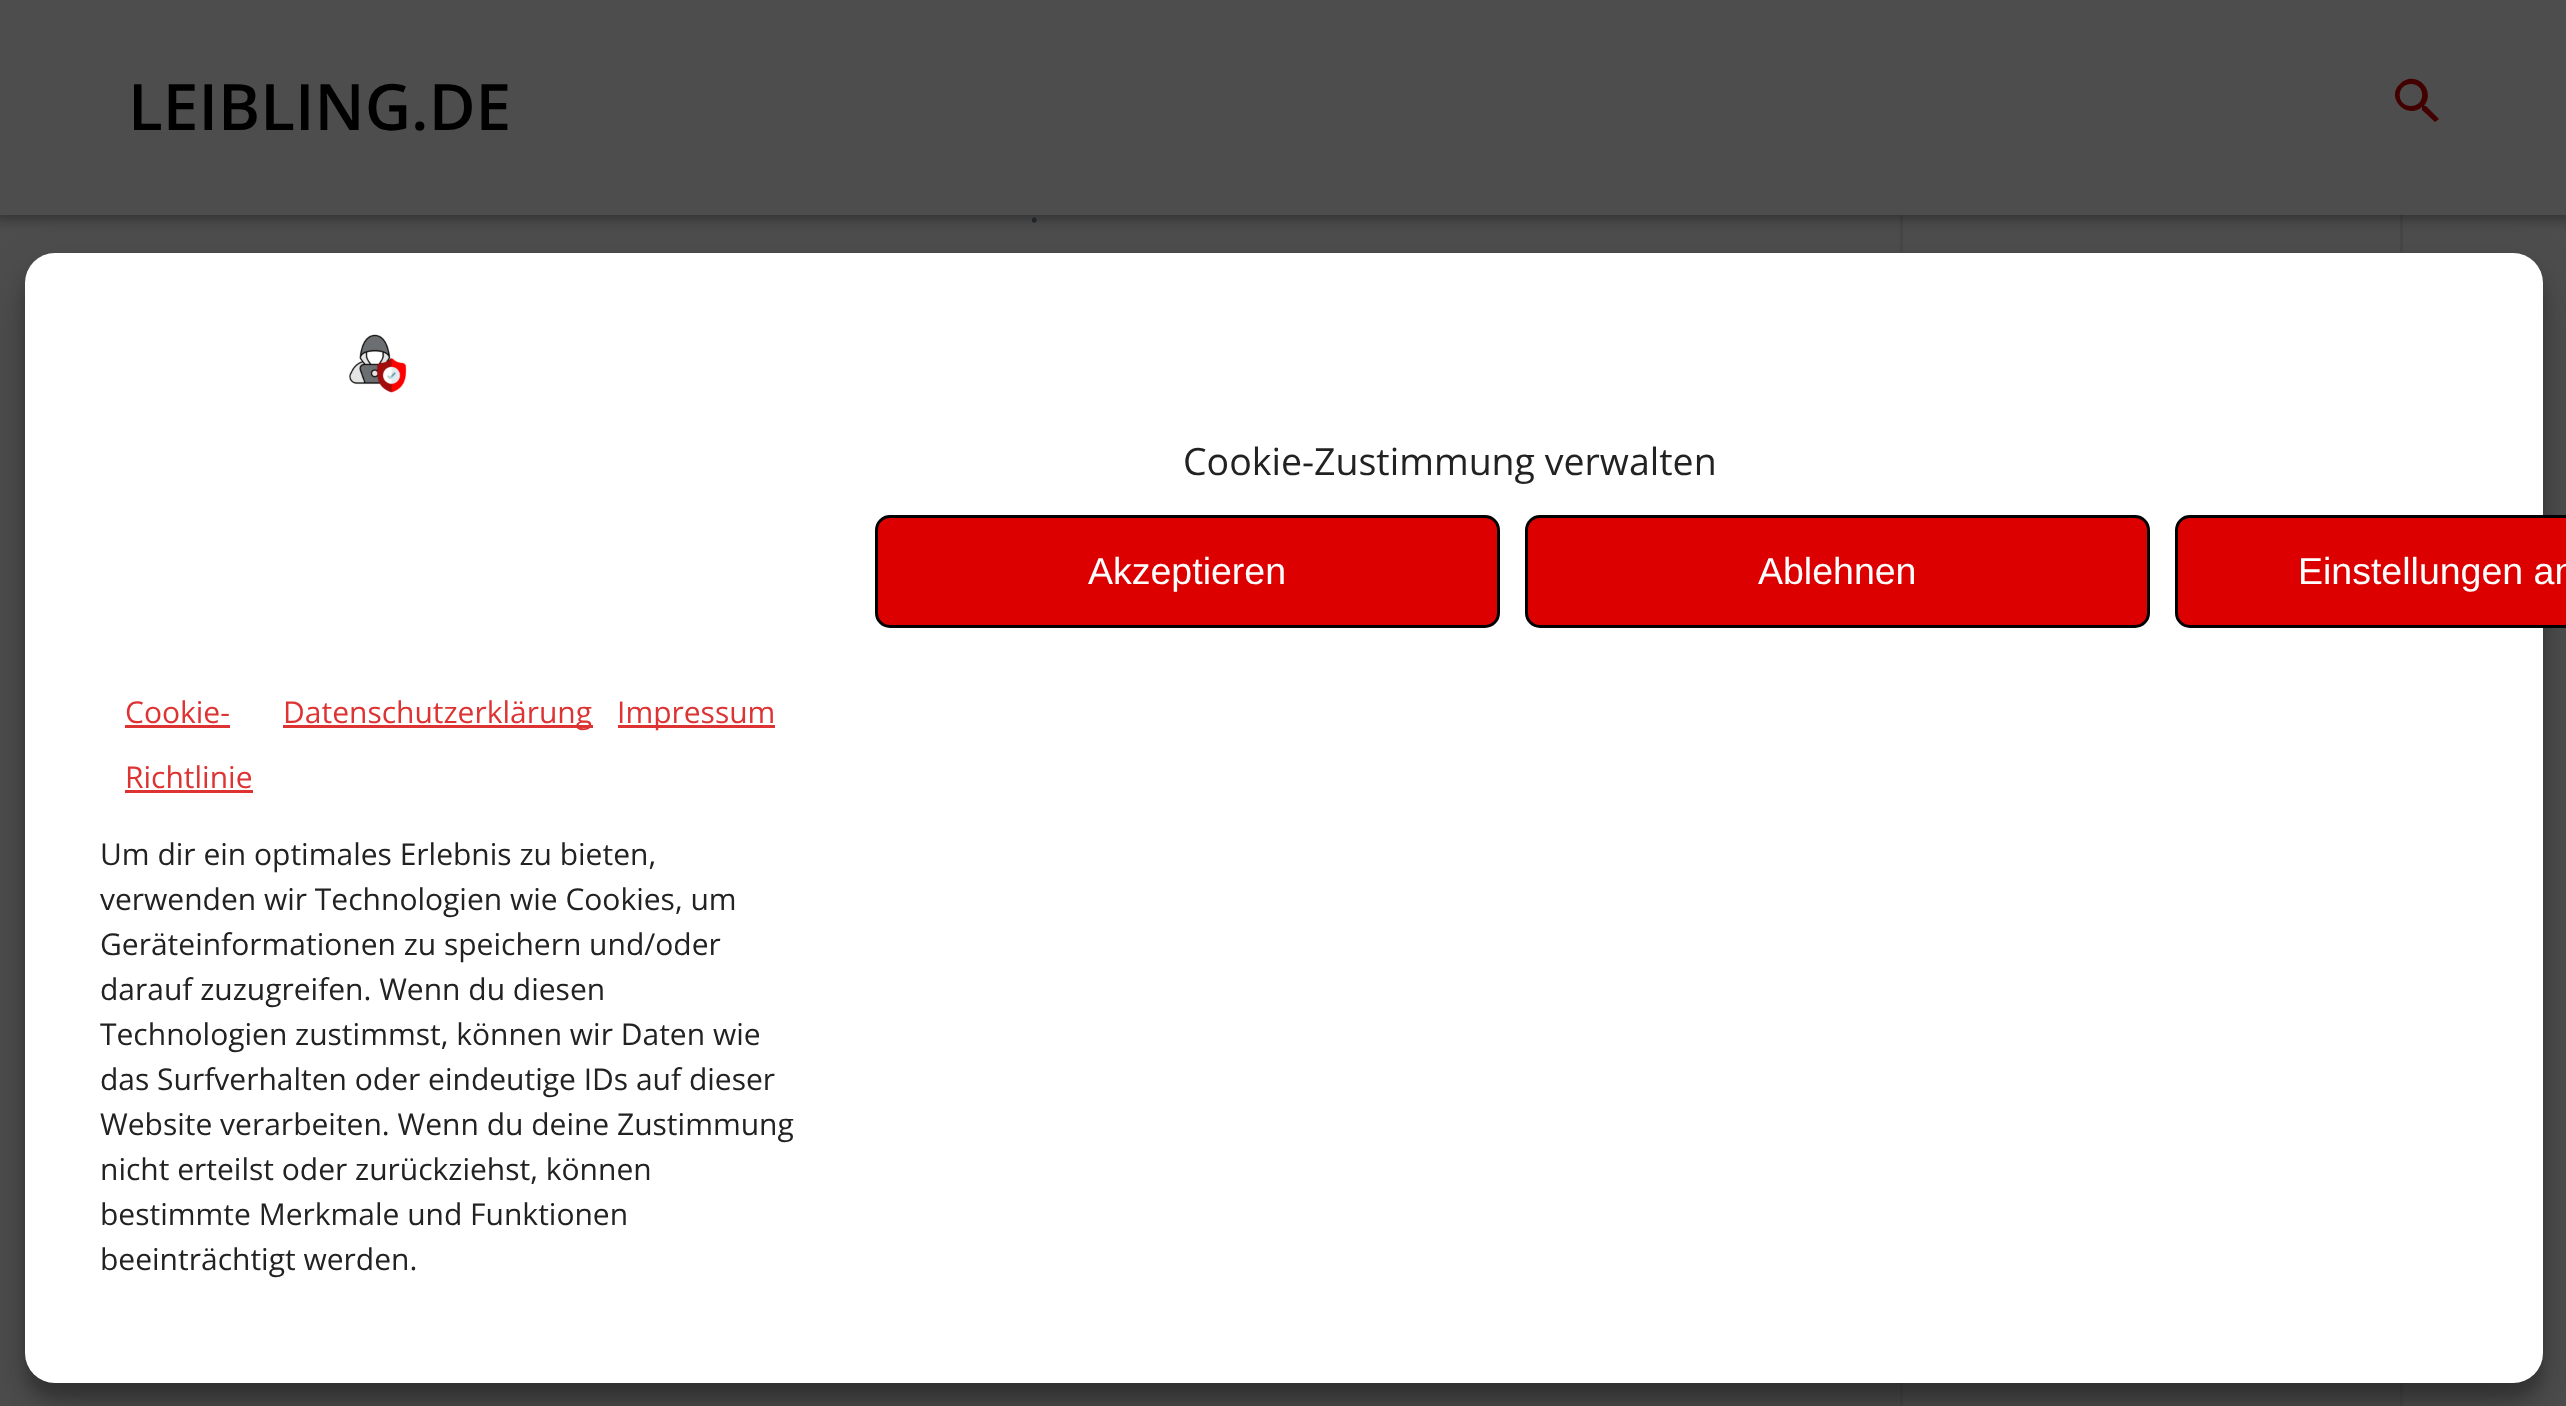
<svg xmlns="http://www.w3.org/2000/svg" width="2566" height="1406">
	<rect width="100%" height="100%" fill="#4D4D4D" />
	<rect x="1901.5" y="-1.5" width="500" height="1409" fill="none" stroke="#474747" stroke-width="3" />
	<rect x="-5" y="-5" width="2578" height="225" fill="#000000" fill-opacity="0.33" filter="blur(6px)" />
	<rect x="0" y="0" width="2566" height="215" fill="#4D4D4D" />
	<text x="128" y="130" font-family="Open Sans" font-size="64" font-weight="600" fill="#000000">LEIBLING.DE</text>
	<path d="M2426 106H2424C2437 90 2415 69 2400 84C2385 98 2407 120 2422 107V108V110L2435 122L2439 119ZM2411 106C2396 106 2396 84 2411 84C2426 84 2426 106 2411 106Z" fill="#420000" />
	<text x="1029" y="222" font-family="Open Sans" font-size="40" fill="#20252C">.</text>
	<rect x="25" y="268" width="2518" height="1130" rx="30" fill="#000000" fill-opacity="0.23" filter="blur(7.5px)" />
	<rect x="25" y="278" width="2518" height="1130" rx="30" fill="#000000" fill-opacity="0.19" filter="blur(25px)" />
	<rect x="25" y="253" width="2518" height="1130" rx="30" fill="#FFFFFF" />
	<image x="349" y="334" width="58" height="59" href="assets/img1.png" />
	<text x="1183" y="475" font-family="Open Sans" font-size="37.5" fill="#222222">Cookie-Zustimmung verwalten</text>
	<rect x="876.5" y="516.5" width="622" height="110" rx="13.5" fill="#DD0000" stroke="#000000" stroke-width="3" />
	<text x="1088" y="584" font-family="Liberation Sans" font-size="37.5" fill="#FFFFFF">Akzeptieren</text>
	<rect x="1526.5" y="516.5" width="622" height="110" rx="13.5" fill="#DD0000" stroke="#000000" stroke-width="3" />
	<text x="1758" y="584" font-family="Liberation Sans" font-size="37.5" fill="#FFFFFF">Ablehnen</text>
	<rect x="2176.5" y="516.5" width="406" height="110" rx="13.5" fill="#DD0000" stroke="#000000" stroke-width="3" />
	<text x="2298" y="584" font-family="Liberation Sans" font-size="37.5" fill="#FFFFFF">Einstellungen an</text>
	<text x="125" y="723" font-family="Open Sans" font-size="30" fill="#DD3333">Cookie-</text>
	<rect x="125" y="725" width="105" height="3" fill="#DD3333" />
	<text x="125" y="788" font-family="Open Sans" font-size="30" fill="#DD3333">Richtlinie</text>
	<rect x="125" y="790" width="128" height="3" fill="#DD3333" />
	<rect x="283" y="725" width="310" height="3" fill="#DD3333" />
	<text x="283" y="723" font-family="Open Sans" font-size="30" fill="#DD3333">Datenschutzerklärung</text>
	<rect x="618" y="725" width="157" height="3" fill="#DD3333" />
	<text x="617" y="723" font-family="Open Sans" font-size="30" fill="#DD3333">Impressum</text>
	<g font-family="Open Sans" font-size="30" fill="#222222">
		<text x="100" y="865">Um dir ein optimales Erlebnis zu bieten,</text>
		<text x="100" y="910">verwenden wir Technologien wie Cookies, um</text>
		<text x="100" y="955">Geräteinformationen zu speichern und/oder</text>
		<text x="100" y="1000">darauf zuzugreifen. Wenn du diesen</text>
		<text x="100" y="1045">Technologien zustimmst, können wir Daten wie</text>
		<text x="100" y="1090">das Surfverhalten oder eindeutige IDs auf dieser</text>
		<text x="100" y="1135">Website verarbeiten. Wenn du deine Zustimmung</text>
		<text x="100" y="1180">nicht erteilst oder zurückziehst, können</text>
		<text x="100" y="1225">bestimmte Merkmale und Funktionen</text>
		<text x="100" y="1270">beeinträchtigt werden.</text>
	</g>
</svg>
